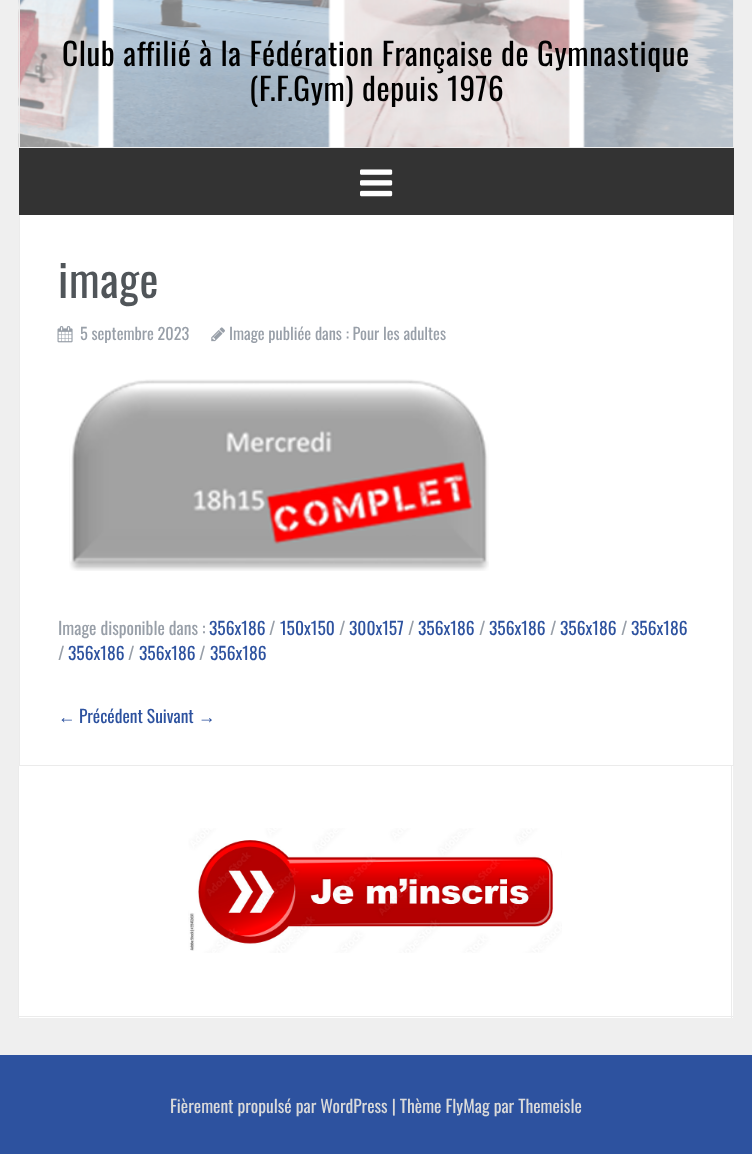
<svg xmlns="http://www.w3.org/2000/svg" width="752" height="1154">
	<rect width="100%" height="100%" fill="#EFEFEF" />
	<image x="18" y="0" width="715" height="147" href="assets/img1.png" />
	<rect x="733" y="0" width="1" height="148" fill="#EBEBEB" />
	<rect x="19" y="0" width="1" height="148" fill="#EBEBEB" />
	<g font-family="Oswald" font-size="31.25" letter-spacing="0.62" fill="#000000">
		<text x="62" y="66">Club affilié à la Fédération Française de Gymnastique</text>
		<text x="249" y="101">(F.F.Gym) depuis 1976</text>
	</g>
	<rect x="19" y="148" width="715" height="67" fill="#333333" />
	<image x="360" y="169" width="33" height="28" href="assets/img2.png" />
	<rect x="20" y="215" width="713" height="550" fill="#FFFFFF" />
	<rect x="733" y="215" width="1" height="551" fill="#EBEBEB" />
	<rect x="19" y="765" width="715" height="1" fill="#EBEBEB" />
	<rect x="19" y="215" width="1" height="551" fill="#EBEBEB" />
	<text x="58" y="298" font-family="Oswald" font-size="45" letter-spacing="0.62" fill="#505559">image</text>
	<image x="57" y="326" width="16" height="17" href="assets/img3.png" />
	<text x="80" y="340" font-family="Oswald" font-size="16.25" fill="#989FA8">5 septembre 2023</text>
	<image x="211" y="327" width="14" height="15" href="assets/img4.png" />
	<text x="229" y="340" font-family="Oswald" font-size="16.25" fill="#989FA8">Image publiée dans : Pour les adultes</text>
	<image x="69" y="379" width="420" height="192" href="assets/img5.png" />
	<text x="58" y="635" font-family="Oswald" font-size="17.5" fill="#989FA8">Image disponible dans :</text>
	<text x="209" y="635" font-family="Oswald" font-size="17.5" fill="#2D529F">356x186</text>
	<text x="269" y="635" font-family="Oswald" font-size="17.5" fill="#989FA8">/</text>
	<text x="280" y="635" font-family="Oswald" font-size="17.5" fill="#2D529F">150x150</text>
	<text x="339" y="635" font-family="Oswald" font-size="17.5" fill="#989FA8">/</text>
	<text x="349" y="635" font-family="Oswald" font-size="17.5" fill="#2D529F">300x157</text>
	<text x="408" y="635" font-family="Oswald" font-size="17.5" fill="#989FA8">/</text>
	<text x="418" y="635" font-family="Oswald" font-size="17.5" fill="#2D529F">356x186</text>
	<text x="479" y="635" font-family="Oswald" font-size="17.5" fill="#989FA8">/</text>
	<text x="489" y="635" font-family="Oswald" font-size="17.5" fill="#2D529F">356x186</text>
	<text x="550" y="635" font-family="Oswald" font-size="17.5" fill="#989FA8">/</text>
	<text x="560" y="635" font-family="Oswald" font-size="17.5" fill="#2D529F">356x186</text>
	<text x="621" y="635" font-family="Oswald" font-size="17.5" fill="#989FA8">/</text>
	<text x="631" y="635" font-family="Oswald" font-size="17.5" fill="#2D529F">356x186</text>
	<text x="58" y="660" font-family="Oswald" font-size="17.5" fill="#989FA8">/</text>
	<text x="68" y="660" font-family="Oswald" font-size="17.5" fill="#2D529F">356x186</text>
	<text x="128" y="660" font-family="Oswald" font-size="17.5" fill="#989FA8">/</text>
	<text x="139" y="660" font-family="Oswald" font-size="17.5" fill="#2D529F">356x186</text>
	<text x="199" y="660" font-family="Oswald" font-size="17.5" fill="#989FA8">/</text>
	<text x="210" y="660" font-family="Oswald" font-size="17.5" fill="#2D529F">356x186</text>
	<text x="58" y="723" font-family="Liberation Sans" font-size="17.5" fill="#2D529F">←</text>
	<text x="79" y="723" font-family="Oswald" font-size="17.5" fill="#2D529F">Précédent Suivant</text>
	<text x="198" y="723" font-family="Liberation Sans" font-size="17.5" fill="#2D529F">→</text>
	<rect x="19" y="766" width="714" height="252" fill="#FFFFFF" />
	<rect x="731" y="766" width="1" height="252" fill="#EBEBEB" />
	<rect x="18" y="1016" width="715" height="1" fill="#EBEBEB" />
	<rect x="18" y="766" width="1" height="252" fill="#EBEBEB" />
	<image x="188" y="828" width="374" height="125" href="assets/img6.png" />
	<rect x="0" y="1055" width="752" height="99" fill="#2D529F" />
	<text x="170" y="1113" font-family="Oswald" font-size="17.5" fill="#DADADA">Fièrement propulsé par WordPress | Thème FlyMag par Themeisle</text>
</svg>
